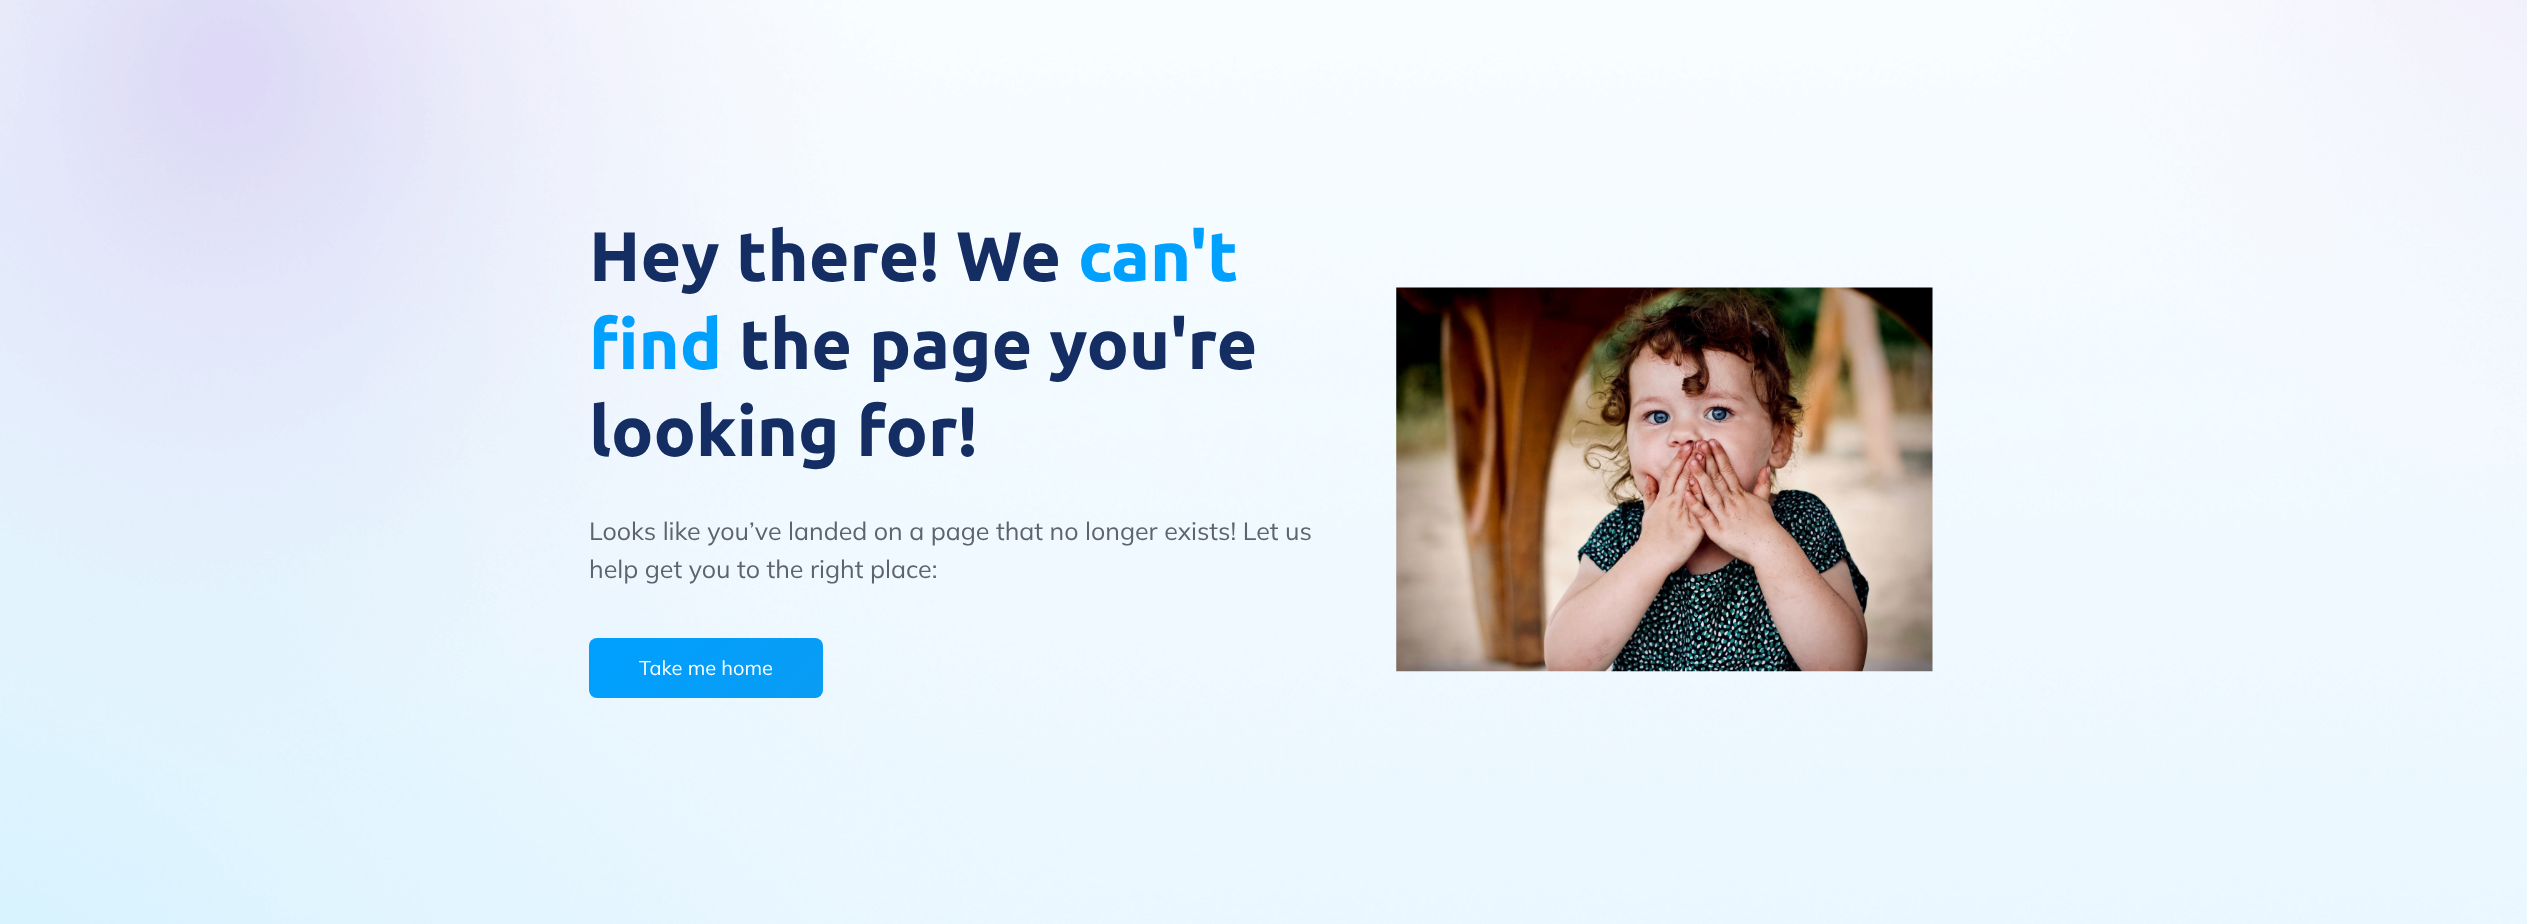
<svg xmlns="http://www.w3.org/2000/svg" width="2527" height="924">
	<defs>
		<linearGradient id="g1" gradientUnits="userSpaceOnUse" x1="628" y1="595" x2="783" y2="740"><stop offset="0" stop-color="#00A0FF" /><stop offset="1" stop-color="#099CF4" /></linearGradient>
	</defs>
	<rect width="100%" height="100%" fill="#FFFFFF" />
	<image x="0" y="0" width="2527" height="924" href="assets/img1.png" />
	<text x="589" y="281" font-family="Ubuntu" font-size="70" font-weight="700" fill="#142D63">Hey there! We</text>
	<g font-family="Ubuntu" font-size="70" font-weight="700" fill="#00A0FF">
		<text x="1078" y="281">can't</text>
		<text x="589" y="369">find</text>
	</g>
	<g font-family="Ubuntu" font-size="70" font-weight="700" fill="#142D63">
		<text x="739" y="369">the page you're</text>
		<text x="589" y="456">looking for!</text>
	</g>
	<g font-family="Mulish" font-size="25" fill="#5D646E">
		<text x="589" y="540">Looks like you’ve landed on a page that no longer exists! Let us</text>
		<text x="589" y="578">help get you to the right place:</text>
	</g>
	<rect x="589" y="638" width="234" height="60" rx="8" fill="url(#g1)" />
	<text x="639" y="675" font-family="Mulish" font-size="20" fill="#FFFFFF">Take me home</text>
	<image x="1396" y="287" width="537" height="385" href="assets/img2.png" />
</svg>
